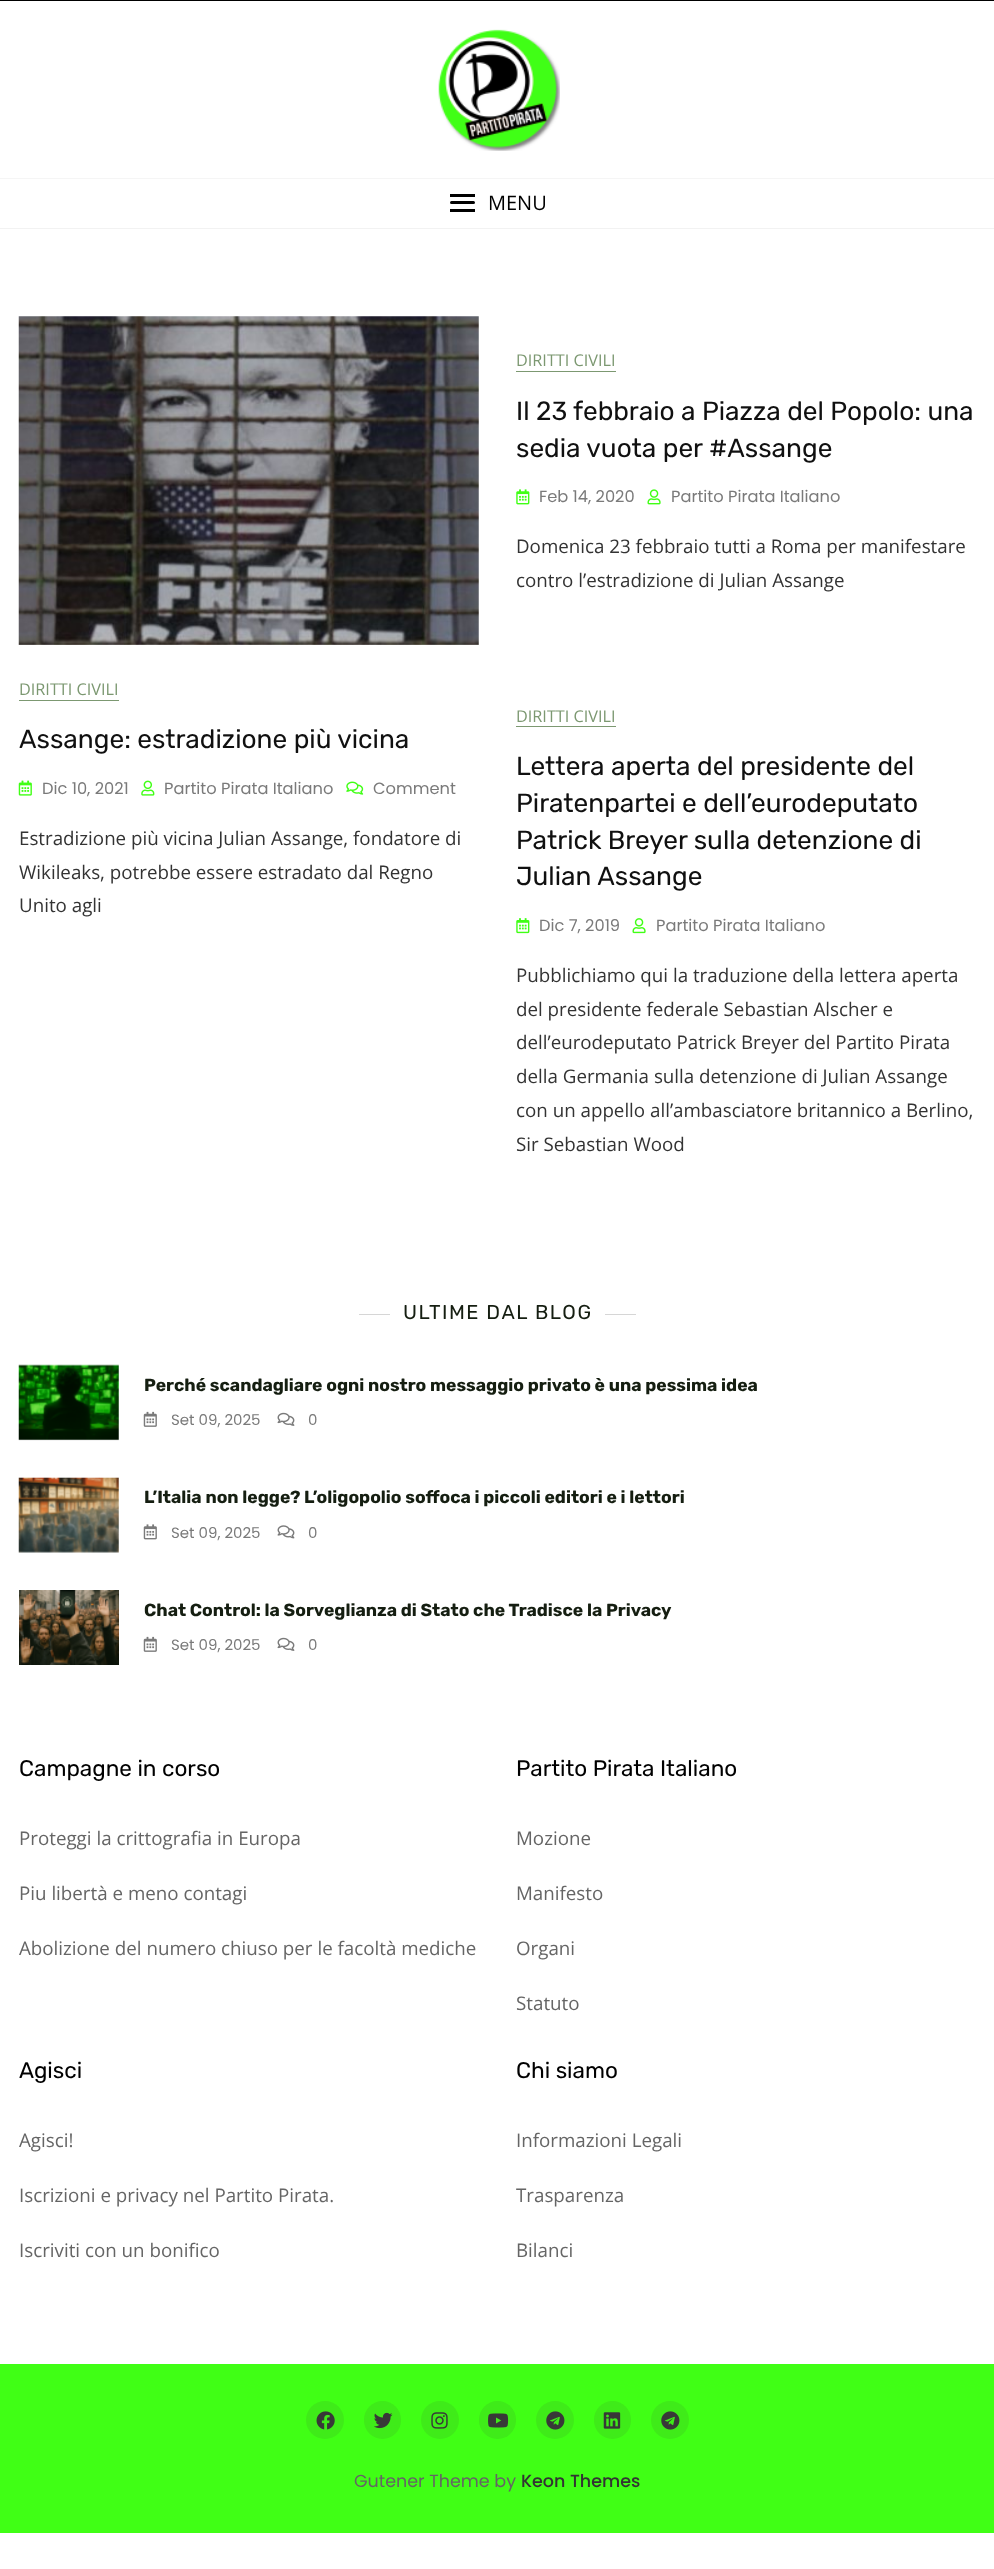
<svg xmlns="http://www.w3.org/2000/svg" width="994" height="2569">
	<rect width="100%" height="100%" fill="#FFFFFF" />
	<rect x="0" y="0" width="994" height="1" fill="#000000" />
	<rect x="0" y="178" width="994" height="1" fill="#F5F5F5" />
	<image x="438" y="29" width="122" height="122" href="assets/img1.png" />
	<rect x="450" y="201" width="25" height="3" rx="1.5" fill="#000000" />
	<rect x="450" y="194" width="25" height="3" fill="#000000" />
	<rect x="450" y="209" width="25" height="3" fill="#000000" />
	<text x="488" y="210" font-family="Open Sans" font-size="20" fill="#000000">MENU</text>
	<rect x="0" y="228" width="994" height="1" fill="#F2F2F2" />
	<text x="516" y="366" font-family="Open Sans" font-size="16.25" fill="#7C9871">DIRITTI CIVILI</text>
	<rect x="516" y="371" width="100" height="1" fill="#7C9871" />
	<g font-family="Rubik" font-size="26.25" fill="#101010">
		<text x="516" y="420">Il 23 febbraio a Piazza del Popolo: una</text>
		<text x="516" y="457">sedia vuota per #Assange</text>
	</g>
	<image x="516" y="489" width="14" height="16" href="assets/img2.png" />
	<text x="539" y="502" font-family="Poppins" font-size="16.25" fill="#7A7A7A">Feb 14, 2020</text>
	<image x="647" y="489" width="14" height="16" href="assets/img3.png" />
	<text x="671" y="502" font-family="Poppins" font-size="16.25" fill="#7A7A7A">Partito Pirata Italiano</text>
	<g font-family="Open Sans" font-size="18.75" fill="#333333">
		<text x="516" y="553">Domenica 23 febbraio tutti a Roma per manifestare</text>
		<text x="516" y="587">contro l’estradizione di Julian Assange</text>
	</g>
	<image x="18" y="316" width="461" height="329" href="assets/img4.png" />
	<text x="19" y="695" font-family="Open Sans" font-size="16.25" fill="#7C9871">DIRITTI CIVILI</text>
	<rect x="19" y="700" width="100" height="1" fill="#7C9871" />
	<text x="19" y="748" font-family="Rubik" font-size="26.25" fill="#101010">Assange: estradizione più vicina</text>
	<image x="18" y="780" width="14" height="16" href="assets/img5.png" />
	<text x="42" y="794" font-family="Poppins" font-size="16.25" fill="#7A7A7A">Dic 10, 2021</text>
	<image x="141" y="780" width="14" height="16" href="assets/img6.png" />
	<text x="164" y="794" font-family="Poppins" font-size="16.25" fill="#7A7A7A">Partito Pirata Italiano</text>
	<image x="346" y="781" width="18" height="14" href="assets/img7.png" />
	<text x="373" y="794" font-family="Poppins" font-size="16.25" fill="#7A7A7A">Comment</text>
	<g font-family="Open Sans" font-size="18.75" fill="#333333">
		<text x="19" y="845">Estradizione più vicina Julian Assange, fondatore di</text>
		<text x="19" y="879">Wikileaks, potrebbe essere estradato dal Regno</text>
		<text x="19" y="912">Unito agli</text>
	</g>
	<text x="516" y="722" font-family="Open Sans" font-size="16.25" fill="#7C9871">DIRITTI CIVILI</text>
	<rect x="516" y="726" width="100" height="1" fill="#7C9871" />
	<g font-family="Rubik" font-size="26.25" fill="#101010">
		<text x="516" y="775">Lettera aperta del presidente del</text>
		<text x="516" y="812">Piratenpartei e dell’eurodeputato</text>
		<text x="516" y="849">Patrick Breyer sulla detenzione di</text>
		<text x="516" y="885">Julian Assange</text>
	</g>
	<image x="516" y="918" width="14" height="16" href="assets/img8.png" />
	<text x="539" y="931" font-family="Poppins" font-size="16.25" fill="#7A7A7A">Dic 7, 2019</text>
	<image x="632" y="918" width="14" height="16" href="assets/img9.png" />
	<text x="656" y="931" font-family="Poppins" font-size="16.25" fill="#7A7A7A">Partito Pirata Italiano</text>
	<g font-family="Open Sans" font-size="18.75" fill="#333333">
		<text x="516" y="982">Pubblichiamo qui la traduzione della lettera aperta</text>
		<text x="516" y="1016">del presidente federale Sebastian Alscher e</text>
		<text x="516" y="1049">dell’eurodeputato Patrick Breyer del Partito Pirata</text>
		<text x="516" y="1083">della Germania sulla detenzione di Julian Assange</text>
		<text x="516" y="1117">con un appello all’ambasciatore britannico a Berlino,</text>
		<text x="516" y="1151">Sir Sebastian Wood</text>
	</g>
	<rect x="359" y="1314" width="31" height="1" fill="#D6D6D6" />
	<text x="403" y="1319" font-family="Rubik" font-size="20" letter-spacing="1.5" fill="#151E11">ULTIME DAL BLOG</text>
	<rect x="605" y="1314" width="31" height="1" fill="#D6D6D6" />
	<image x="18" y="1364" width="101" height="77" href="assets/img10.png" />
	<text x="144" y="1391" font-family="Rubik" font-size="17.5" font-weight="700" fill="#151E11">Perché scandagliare ogni nostro messaggio privato è una pessima idea</text>
	<image x="143" y="1411" width="14" height="16" href="assets/img11.png" />
	<text x="171" y="1425" font-family="Poppins" font-size="15" fill="#7A7A7A">Set 09, 2025</text>
	<image x="277" y="1412" width="18" height="14" href="assets/img12.png" />
	<text x="308" y="1425" font-family="Poppins" font-size="15" fill="#7A7A7A">0</text>
	<image x="18" y="1477" width="101" height="76" href="assets/img13.png" />
	<text x="144" y="1503" font-family="Rubik" font-size="17.5" font-weight="700" fill="#151E11">L’Italia non legge? L’oligopolio soffoca i piccoli editori e i lettori</text>
	<image x="143" y="1524" width="14" height="16" href="assets/img14.png" />
	<text x="171" y="1538" font-family="Poppins" font-size="15" fill="#7A7A7A">Set 09, 2025</text>
	<image x="277" y="1525" width="18" height="14" href="assets/img15.png" />
	<text x="308" y="1538" font-family="Poppins" font-size="15" fill="#7A7A7A">0</text>
	<image x="19" y="1590" width="100" height="75" href="assets/img16.png" />
	<text x="144" y="1616" font-family="Rubik" font-size="17.5" font-weight="700" fill="#151E11">Chat Control: la Sorveglianza di Stato che Tradisce la Privacy</text>
	<image x="143" y="1636" width="14" height="16" href="assets/img11.png" />
	<text x="171" y="1650" font-family="Poppins" font-size="15" fill="#7A7A7A">Set 09, 2025</text>
	<image x="277" y="1637" width="18" height="14" href="assets/img12.png" />
	<text x="308" y="1650" font-family="Poppins" font-size="15" fill="#7A7A7A">0</text>
	<text x="19" y="1776" font-family="Rubik" font-size="22.5" fill="#000000">Campagne in corso</text>
	<g font-family="Open Sans" font-size="18.75" fill="#656565">
		<text x="19" y="1845">Proteggi la crittografia in Europa</text>
		<text x="19" y="1900">Piu libertà e meno contagi</text>
		<text x="19" y="1955">Abolizione del numero chiuso per le facoltà mediche</text>
	</g>
	<text x="516" y="1776" font-family="Rubik" font-size="22.5" fill="#000000">Partito Pirata Italiano</text>
	<g font-family="Open Sans" font-size="18.75" fill="#656565">
		<text x="516" y="1845">Mozione</text>
		<text x="516" y="1900">Manifesto</text>
		<text x="516" y="1955">Organi</text>
		<text x="516" y="2010">Statuto</text>
	</g>
	<text x="19" y="2078" font-family="Rubik" font-size="22.5" fill="#000000">Agisci</text>
	<g font-family="Open Sans" font-size="18.75" fill="#656565">
		<text x="19" y="2147">Agisci!</text>
		<text x="19" y="2202">Iscrizioni e privacy nel Partito Pirata.</text>
		<text x="19" y="2257">Iscriviti con un bonifico</text>
	</g>
	<text x="516" y="2078" font-family="Rubik" font-size="22.5" fill="#000000">Chi siamo</text>
	<g font-family="Open Sans" font-size="18.75" fill="#656565">
		<text x="516" y="2147">Informazioni Legali</text>
		<text x="516" y="2202">Trasparenza</text>
		<text x="516" y="2257">Bilanci</text>
	</g>
	<rect x="0" y="2364" width="994" height="169" fill="#40FF15" />
	<circle cx="325" cy="2420" r="19" fill="#3FEB19" />
	<image x="316" y="2411" width="19" height="19" href="assets/img17.png" />
	<rect x="364" y="2401" width="37" height="38" rx="18.5" fill="#3FEB19" />
	<image x="374" y="2412" width="19" height="17" href="assets/img18.png" />
	<circle cx="440" cy="2420" r="19" fill="#3FEB19" />
	<image x="431" y="2412" width="17" height="17" href="assets/img19.png" />
	<rect x="479" y="2401" width="37" height="38" rx="18.5" fill="#3FEB19" />
	<image x="488" y="2413" width="21" height="15" href="assets/img20.png" />
	<circle cx="555" cy="2420" r="19" fill="#3FEB19" />
	<image x="546" y="2411" width="19" height="19" href="assets/img21.png" />
	<rect x="594" y="2401" width="37" height="38" rx="18.5" fill="#3FEB19" />
	<image x="603" y="2412" width="18" height="17" href="assets/img22.png" />
	<circle cx="670" cy="2420" r="19" fill="#3FEB19" />
	<image x="661" y="2411" width="19" height="19" href="assets/img21.png" />
	<text x="354" y="2487" font-family="Poppins" font-size="17.5" fill="#656565">Gutener Theme by</text>
	<text x="521" y="2487" font-family="Poppins" font-size="17.5" font-weight="500" fill="#333333">Keon Themes</text>
</svg>
